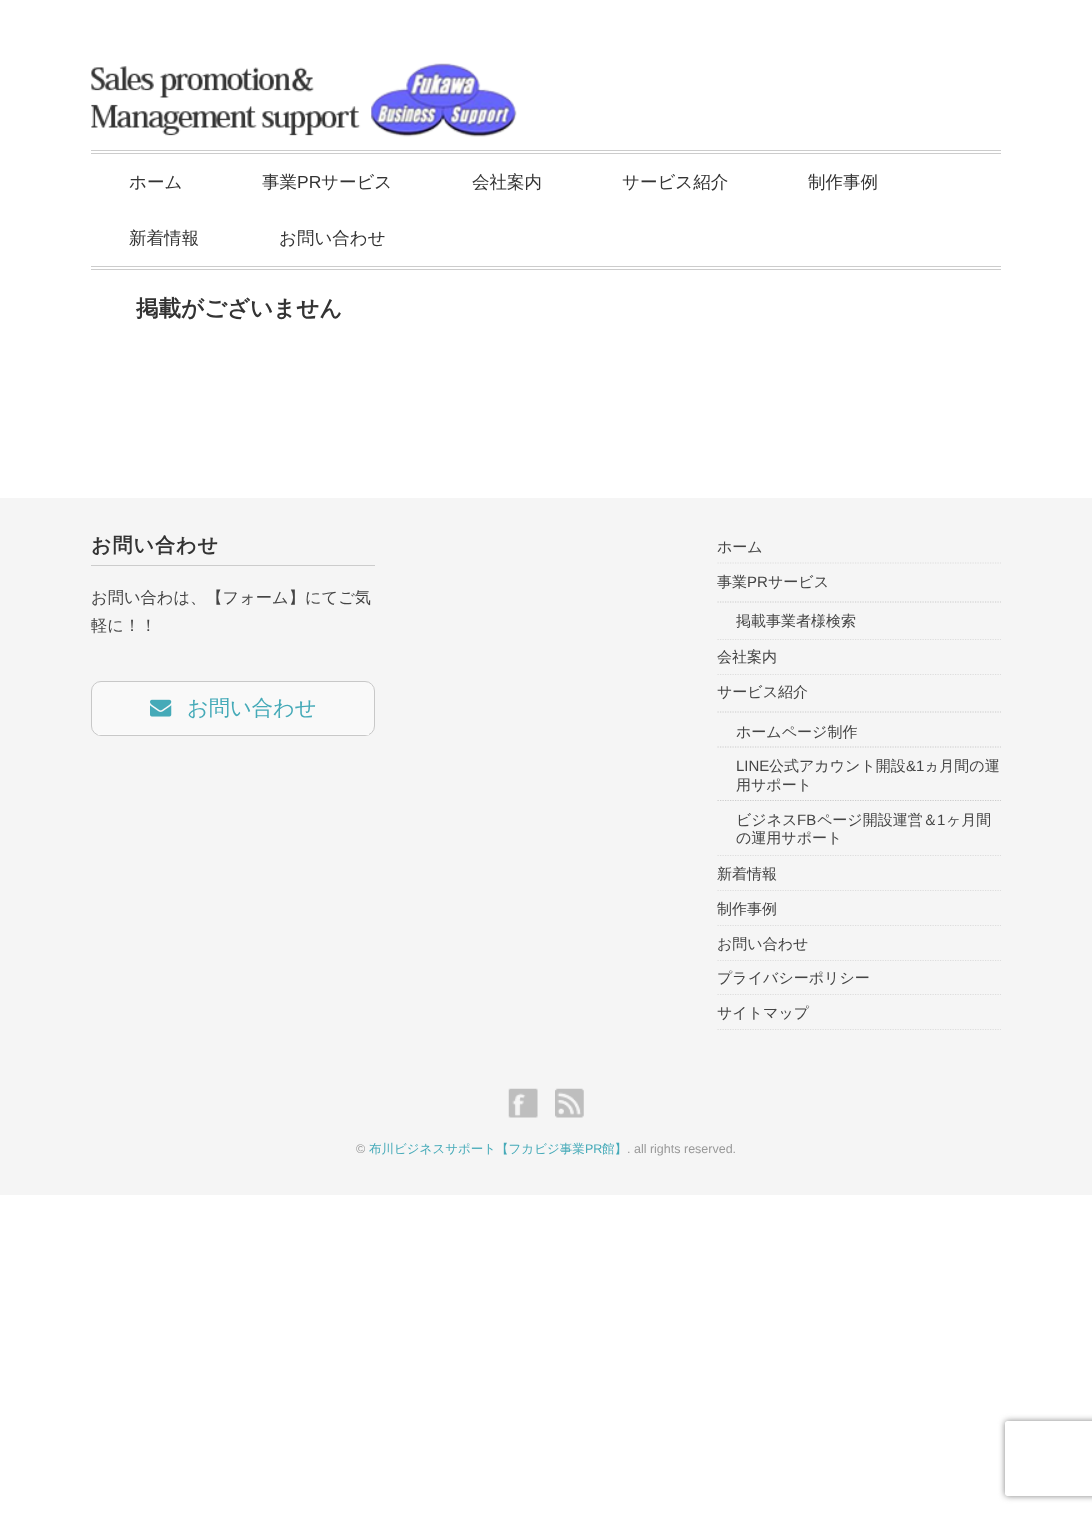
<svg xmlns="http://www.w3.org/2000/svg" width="1092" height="1513">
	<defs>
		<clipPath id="clip1"><path d="M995 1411H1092V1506H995ZM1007.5 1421H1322.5C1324 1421 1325 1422 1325 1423.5V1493.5C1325 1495 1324 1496 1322.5 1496H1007.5C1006 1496 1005 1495 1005 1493.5V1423.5C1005 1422 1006 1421 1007.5 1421Z" clip-rule="evenodd" /></clipPath>
	</defs>
	<rect width="100%" height="100%" fill="#FFFFFF" />
	<image x="91" y="63" width="426" height="74" href="assets/img1.png" />
	<rect x="91" y="150" width="910" height="1" fill="#CCCCCC" />
	<rect x="91" y="153" width="910" height="1" fill="#CCCCCC" />
	<rect x="91" y="266" width="910" height="1" fill="#CCCCCC" />
	<rect x="91" y="269" width="910" height="1" fill="#CCCCCC" />
	<g font-family="WenQuanYi Zen Hei" font-size="17.5" font-weight="500" fill="#333333">
		<text x="129" y="188">ホーム</text>
		<text x="262" y="188">事業</text>
	</g>
	<text x="297" y="188" font-family="Liberation Sans" font-size="17.5" fill="#333333">PR</text>
	<g font-family="WenQuanYi Zen Hei" font-size="17.5" font-weight="500" fill="#333333">
		<text x="321" y="188">サービス</text>
		<text x="472" y="188">会社案内</text>
		<text x="622" y="188">サービス紹介</text>
		<text x="808" y="188">制作事例</text>
		<text x="129" y="244">新着情報</text>
		<text x="279" y="244">お問い合わせ</text>
	</g>
	<text x="136" y="316" font-family="WenQuanYi Zen Hei" font-size="22.5" font-weight="700" fill="#333333">掲載がございません</text>
	<rect x="0" y="498" width="1092" height="697" fill="#F5F5F5" />
	<rect x="91" y="565" width="284" height="1" fill="#CCCCCC" />
	<text x="91" y="552" font-family="WenQuanYi Zen Hei" font-size="20" font-weight="700" letter-spacing="1" fill="#333333">お問い合わせ</text>
	<g font-family="WenQuanYi Zen Hei" font-size="16.25" font-weight="500" fill="#444444">
		<text x="91" y="603">お問い合わは、【フォーム】にてご気</text>
		<text x="91" y="631">軽に！！</text>
	</g>
	<rect x="91.5" y="681.5" width="283" height="54" rx="9.5" fill="#F9F9F9" stroke="#C8C8C8" />
	<rect x="98" y="734" width="271" height="1" fill="#FBFBFB" />
	<image x="150" y="699" width="22" height="18" href="assets/img2.png" />
	<text x="187" y="715" font-family="WenQuanYi Zen Hei" font-size="21.25" font-weight="500" fill="#45AAB8">お問い合わせ</text>
	<path d="M717.5 563H1001" fill="none" stroke="#DDDDDD" stroke-width="1.2" stroke-dasharray="1.25 1.25" />
	<text x="717" y="552" font-family="WenQuanYi Zen Hei" font-size="15" font-weight="500" fill="#444444">ホーム</text>
	<path d="M717.5 639.5H1001" fill="none" stroke="#DDDDDD" stroke-width="1.2" stroke-dasharray="1.25 1.25" />
	<text x="717" y="587" font-family="WenQuanYi Zen Hei" font-size="15" font-weight="500" fill="#444444">事業</text>
	<text x="747" y="587" font-family="Liberation Sans" font-size="15" fill="#444444">PR</text>
	<text x="768" y="587" font-family="WenQuanYi Zen Hei" font-size="15" font-weight="500" fill="#444444">サービス</text>
	<path d="M717.5 602H1001" fill="none" stroke="#CCCCCC" stroke-width="1.2" stroke-dasharray="1.25 1.25" />
	<text x="736" y="626" font-family="WenQuanYi Zen Hei" font-size="15" font-weight="500" fill="#444444">掲載事業者様検索</text>
	<path d="M717.5 674.5H1001" fill="none" stroke="#DDDDDD" stroke-width="1.2" stroke-dasharray="1.25 1.25" />
	<text x="717" y="662" font-family="WenQuanYi Zen Hei" font-size="15" font-weight="500" fill="#444444">会社案内</text>
	<path d="M717.5 855.5H1001" fill="none" stroke="#DDDDDD" stroke-width="1.2" stroke-dasharray="1.25 1.25" />
	<text x="717" y="697" font-family="WenQuanYi Zen Hei" font-size="15" font-weight="500" fill="#444444">サービス紹介</text>
	<path d="M717.5 712H1001" fill="none" stroke="#CCCCCC" stroke-width="1.2" stroke-dasharray="1.25 1.25" />
	<text x="736" y="737" font-family="WenQuanYi Zen Hei" font-size="15" font-weight="500" fill="#444444">ホームページ制作</text>
	<path d="M717.5 747H1001" fill="none" stroke="#CCCCCC" stroke-width="1.2" stroke-dasharray="1.25 1.25" />
	<text x="736" y="771" font-family="Liberation Sans" font-size="15" fill="#444444">LINE</text>
	<text x="769" y="771" font-family="WenQuanYi Zen Hei" font-size="15" font-weight="500" fill="#444444">公式アカウント開設</text>
	<text x="906" y="771" font-family="Liberation Sans" font-size="15" fill="#444444">&amp;1</text>
	<g font-family="WenQuanYi Zen Hei" font-size="15" font-weight="500" fill="#444444">
		<text x="924" y="771">ヵ月間の運</text>
		<text x="736" y="790">用サポート</text>
	</g>
	<path d="M717.5 800.5H1001" fill="none" stroke="#CCCCCC" stroke-width="1.2" stroke-dasharray="1.25 1.25" />
	<text x="736" y="825" font-family="WenQuanYi Zen Hei" font-size="15" font-weight="500" fill="#444444">ビジネス</text>
	<text x="797" y="825" font-family="Liberation Sans" font-size="15" fill="#444444">FB</text>
	<text x="817" y="825" font-family="WenQuanYi Zen Hei" font-size="15" font-weight="500" fill="#444444">ページ開設運営＆</text>
	<text x="937" y="825" font-family="Liberation Sans" font-size="15" fill="#444444">1</text>
	<g font-family="WenQuanYi Zen Hei" font-size="15" font-weight="500" fill="#444444">
		<text x="946" y="825">ヶ月間</text>
		<text x="736" y="843">の運用サポート</text>
	</g>
	<path d="M717.5 890.5H1001" fill="none" stroke="#DDDDDD" stroke-width="1.2" stroke-dasharray="1.25 1.25" />
	<text x="717" y="879" font-family="WenQuanYi Zen Hei" font-size="15" font-weight="500" fill="#444444">新着情報</text>
	<path d="M717.5 925.5H1001" fill="none" stroke="#DDDDDD" stroke-width="1.2" stroke-dasharray="1.25 1.25" />
	<text x="717" y="914" font-family="WenQuanYi Zen Hei" font-size="15" font-weight="500" fill="#444444">制作事例</text>
	<path d="M717.5 960.5H1001" fill="none" stroke="#DDDDDD" stroke-width="1.2" stroke-dasharray="1.25 1.25" />
	<text x="717" y="949" font-family="WenQuanYi Zen Hei" font-size="15" font-weight="500" fill="#444444">お問い合わせ</text>
	<path d="M717.5 994.5H1001" fill="none" stroke="#DDDDDD" stroke-width="1.2" stroke-dasharray="1.25 1.25" />
	<text x="717" y="983" font-family="WenQuanYi Zen Hei" font-size="15" font-weight="500" fill="#444444">プライバシーポリシー</text>
	<path d="M717.5 1029.5H1001" fill="none" stroke="#DDDDDD" stroke-width="1.2" stroke-dasharray="1.25 1.25" />
	<text x="717" y="1018" font-family="WenQuanYi Zen Hei" font-size="15" font-weight="500" fill="#444444">サイトマップ</text>
	<image x="508" y="1088" width="30" height="30" href="assets/img3.png" />
	<image x="555" y="1088" width="29" height="30" href="assets/img4.png" />
	<text x="356" y="1153" font-family="Liberation Sans" font-size="12.5" fill="#999999">©</text>
	<text x="369" y="1153" font-family="WenQuanYi Zen Hei" font-size="12.5" font-weight="500" fill="#45AAB8">布川ビジネスサポート【フカビジ事業</text>
	<text x="585" y="1153" font-family="Liberation Sans" font-size="12.5" fill="#45AAB8">PR</text>
	<text x="602" y="1153" font-family="WenQuanYi Zen Hei" font-size="12.5" font-weight="500" fill="#45AAB8">館】</text>
	<text x="627" y="1153" font-family="Liberation Sans" font-size="12.5" fill="#999999">. all rights reserved.</text>
	<g clip-path="url(#clip1)">
		<rect x="1005" y="1421" width="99" height="75" rx="2.5" fill="#808080" filter="blur(3px)" />
	</g>
</svg>
